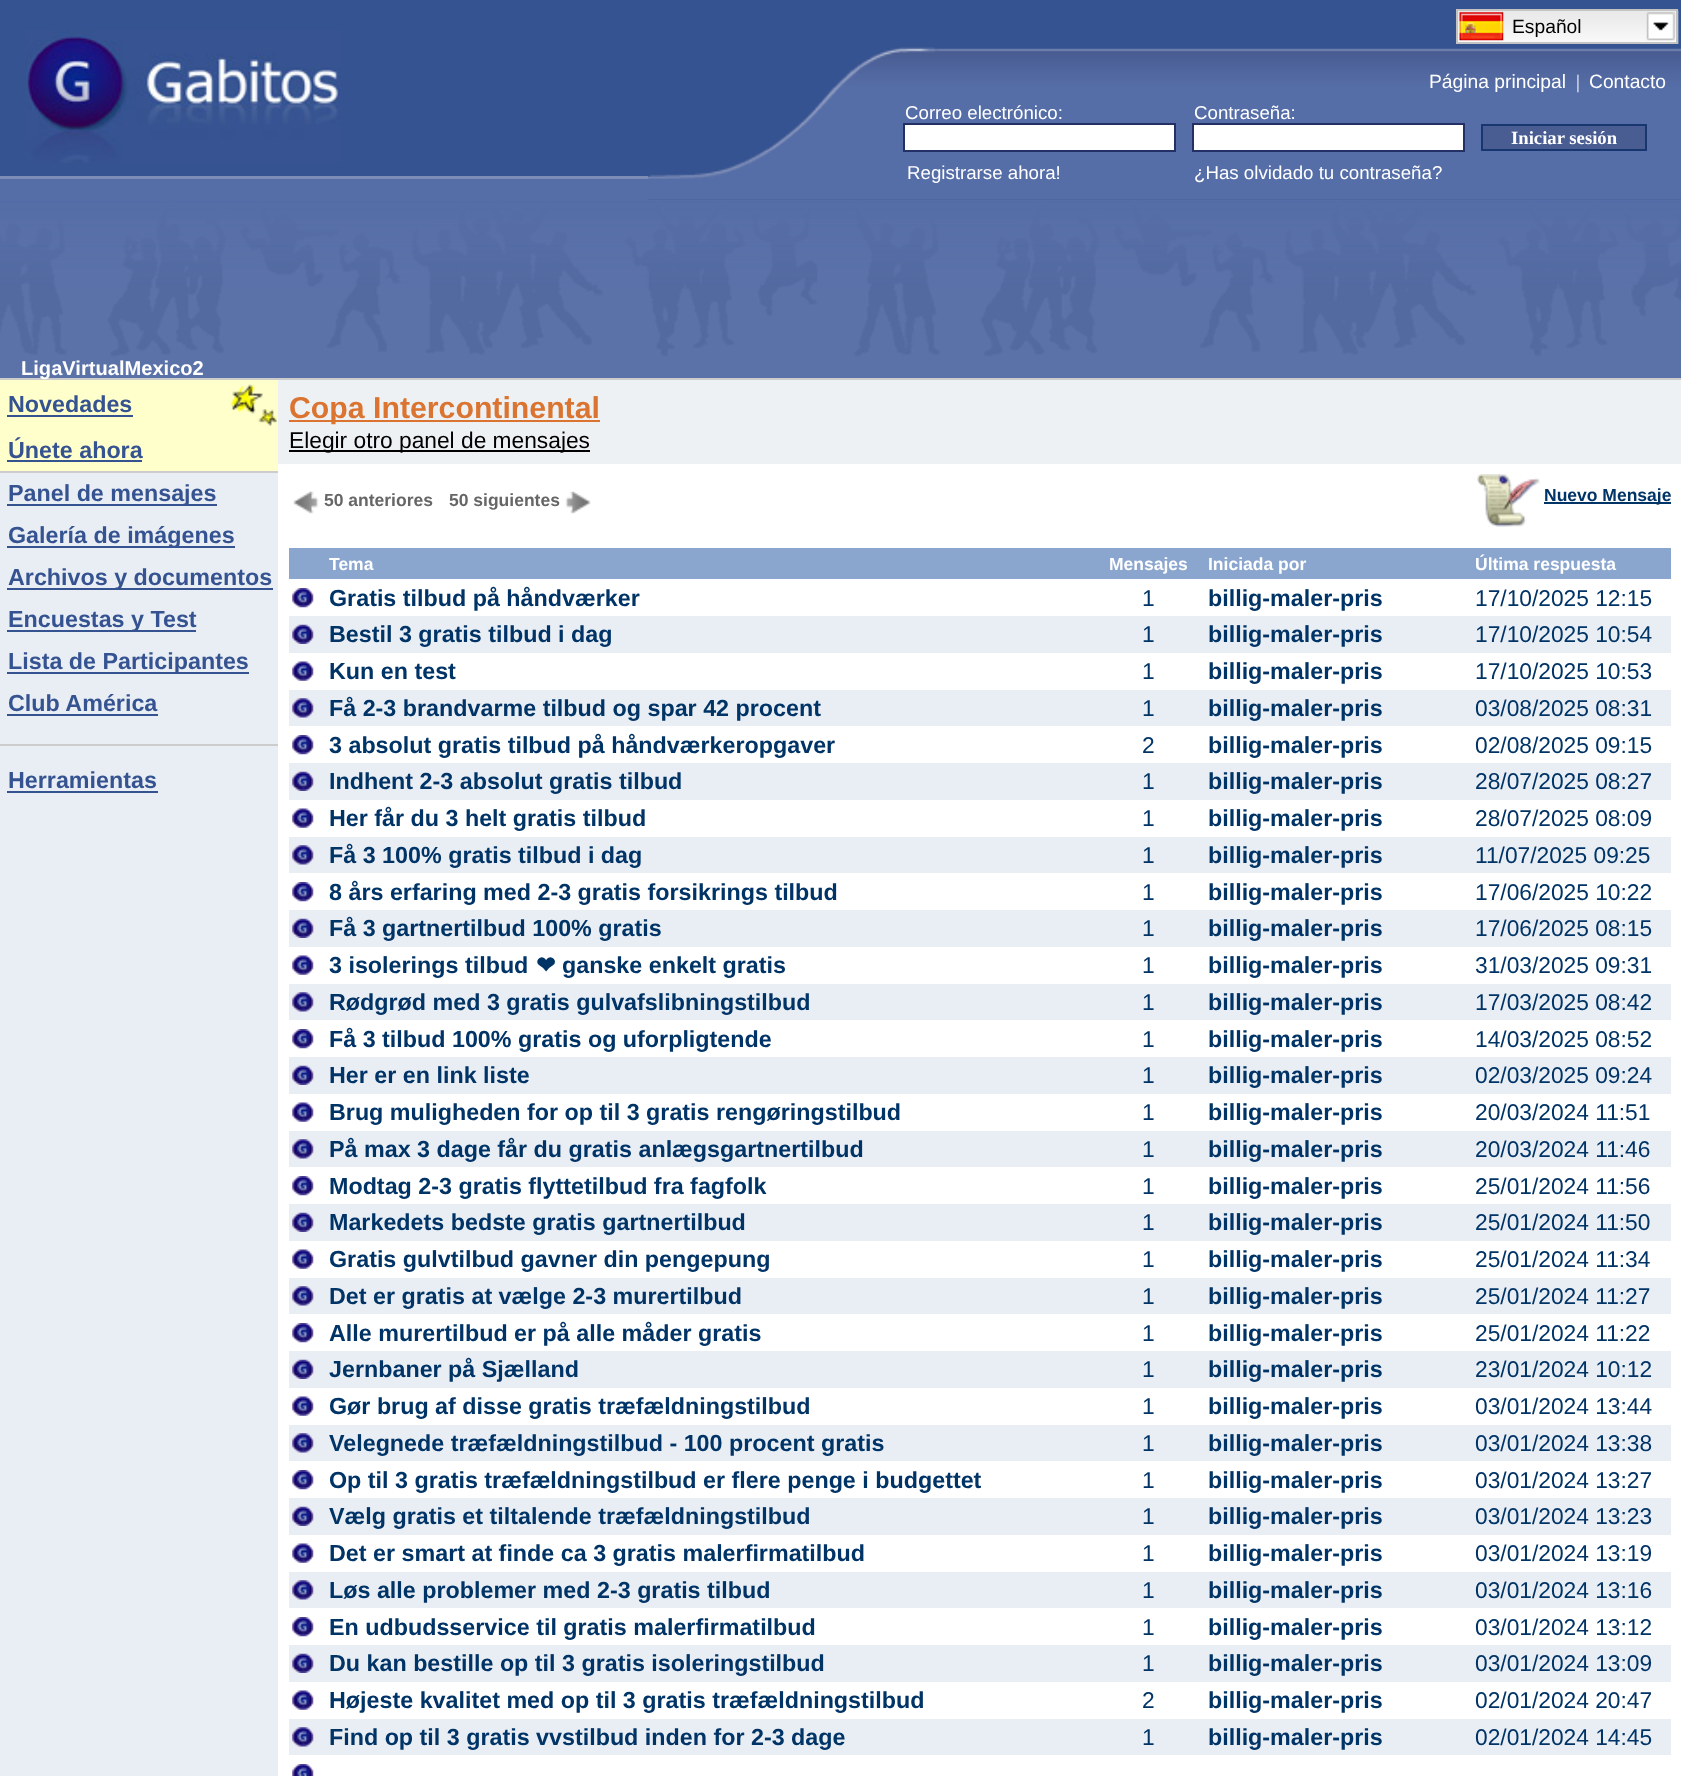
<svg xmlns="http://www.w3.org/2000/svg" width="1681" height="1776">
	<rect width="100%" height="100%" fill="#CCCCCC" />
	<rect x="0" y="0" width="1681" height="200" fill="#365391" />
	<image x="25" y="30" width="316" height="133" href="assets/img1.png" />
	<image x="647" y="47" width="1034" height="153" href="assets/img2.png" />
	<image x="1458" y="10" width="221" height="34" href="assets/img3.png" />
	<rect x="1457" y="10" width="220" height="33" fill="none" stroke="#C3C3C3" stroke-width="2" />
	<image x="1459" y="12" width="45" height="29" href="assets/img4.png" />
	<text x="1512" y="33" font-family="Liberation Sans" font-size="19.25" fill="#000000">Español</text>
	<image x="1646" y="12" width="29" height="29" href="assets/img5.png" />
	<text x="1429" y="88" font-family="Liberation Sans" font-size="19.25" fill="#FFFFFF">Página principal</text>
	<text x="1576" y="88" font-family="Liberation Serif" font-size="19.25" fill="#FFFFFF">|</text>
	<text x="1589" y="88" font-family="Liberation Sans" font-size="19.25" fill="#FFFFFF">Contacto</text>
	<g font-family="Liberation Sans" font-size="18.7" fill="#FFFFFF">
		<text x="905" y="119">Correo electrónico:</text>
		<text x="1194" y="119">Contraseña:</text>
	</g>
	<rect x="904" y="124" width="271" height="27" fill="#FFFFFF" stroke="#233065" stroke-width="2" />
	<rect x="1193" y="124" width="271" height="27" fill="#FFFFFF" stroke="#233065" stroke-width="2" />
	<rect x="1482" y="125" width="164" height="25" fill="#495D93" stroke="#183770" stroke-width="2" />
	<text x="1511" y="144" font-family="Liberation Serif" font-size="18.7" font-weight="700" fill="#FFFFFF">Iniciar sesión</text>
	<g font-family="Liberation Sans" font-size="18.7" fill="#FFFFFF">
		<text x="907" y="179">Registrarse ahora!</text>
		<text x="1194" y="179">¿Has olvidado tu contraseña?</text>
	</g>
	<rect x="0" y="179" width="648" height="21" fill="#566EA7" />
	<rect x="0" y="176" width="648" height="3" fill="#7C8CB4" />
	<image x="0" y="199" width="1681" height="158" href="assets/img6.png" />
	<rect x="0" y="357" width="1681" height="21" fill="#5B72A9" />
	<text x="21" y="375" font-family="Liberation Sans" font-size="20.1" font-weight="700" fill="#FFFFFF">LigaVirtualMexico2</text>
	<rect x="278" y="464" width="1403" height="1312" fill="#FFFFFF" />
	<rect x="0" y="473" width="278" height="1303" fill="#E8EEF4" />
	<rect x="0" y="380" width="278" height="91" fill="#FFFFCC" />
	<text x="8" y="412" font-family="Liberation Sans" font-size="23.3" font-weight="700" fill="#365391">Novedades</text>
	<rect x="7" y="415" width="126" height="2" fill="#365391" />
	<image x="230" y="384" width="47" height="42" href="assets/img7.png" />
	<text x="8" y="458" font-family="Liberation Sans" font-size="23.3" font-weight="700" fill="#365391">Únete ahora</text>
	<rect x="7" y="460" width="135" height="2" fill="#365391" />
	<rect x="7" y="504" width="210" height="2" fill="#365391" />
	<text x="8" y="501" font-family="Liberation Sans" font-size="23.3" font-weight="700" fill="#365391">Panel de mensajes</text>
	<rect x="7" y="546" width="228" height="2" fill="#365391" />
	<text x="8" y="543" font-family="Liberation Sans" font-size="23.3" font-weight="700" fill="#365391">Galería de imágenes</text>
	<rect x="7" y="588" width="266" height="2" fill="#365391" />
	<text x="8" y="585" font-family="Liberation Sans" font-size="23.3" font-weight="700" fill="#365391">Archivos y documentos</text>
	<rect x="7" y="630" width="189" height="2" fill="#365391" />
	<text x="8" y="627" font-family="Liberation Sans" font-size="23.3" font-weight="700" fill="#365391">Encuestas y Test</text>
	<rect x="7" y="672" width="242" height="2" fill="#365391" />
	<g font-family="Liberation Sans" font-size="23.3" font-weight="700" fill="#365391">
		<text x="8" y="669">Lista de Participantes</text>
		<text x="8" y="711">Club América</text>
	</g>
	<rect x="7" y="714" width="151" height="2" fill="#365391" />
	<rect x="0" y="744" width="278" height="2" fill="#CCCCCC" />
	<text x="8" y="788" font-family="Liberation Sans" font-size="23.3" font-weight="700" fill="#365391">Herramientas</text>
	<rect x="7" y="791" width="151" height="2" fill="#365391" />
	<rect x="278" y="380" width="1403" height="84" fill="#EEF1F4" />
	<rect x="289" y="420" width="311" height="2" fill="#DA7430" />
	<text x="289" y="418" font-family="Liberation Sans" font-size="30.25" font-weight="700" fill="#DA7430">Copa Intercontinental</text>
	<rect x="289" y="450" width="301" height="2" fill="#000000" />
	<text x="289" y="448" font-family="Liberation Sans" font-size="22.75" fill="#000000">Elegir otro panel de mensajes</text>
	<image x="293" y="491" width="26" height="23" href="assets/img8.png" />
	<g font-family="Liberation Sans" font-size="17.5" font-weight="700" fill="#666666">
		<text x="324" y="506">50 anteriores</text>
		<text x="449" y="506">50 siguientes</text>
	</g>
	<image x="565" y="491" width="26" height="23" href="assets/img9.png" />
	<image x="1477" y="474" width="63" height="53" href="assets/img10.png" />
	<rect x="1544" y="502" width="127" height="2" fill="#003366" />
	<text x="1544" y="501" font-family="Liberation Sans" font-size="17.5" font-weight="700" fill="#003366">Nuevo Mensaje</text>
	<rect x="289" y="548" width="1382" height="31" fill="#8BA6CE" />
	<g font-family="Liberation Sans" font-size="17.5" font-weight="700" fill="#FFFFFF">
		<text x="329" y="570">Tema</text>
		<text x="1109" y="570">Mensajes</text>
		<text x="1208" y="570">Iniciada por</text>
		<text x="1475" y="570">Última respuesta</text>
	</g>
	<image x="292" y="588" width="22" height="20" href="assets/img11.png" />
	<text x="329" y="606" font-family="Liberation Sans" font-size="23.3" font-weight="700" fill="#003366">Gratis tilbud på håndværker</text>
	<text x="1142" y="606" font-family="Liberation Sans" font-size="22.75" fill="#003366">1</text>
	<text x="1208" y="606" font-family="Liberation Sans" font-size="23.3" font-weight="700" fill="#003366">billig-maler-pris</text>
	<text x="1475" y="606" font-family="Liberation Sans" font-size="22.75" fill="#003366">17/10/2025 12:15</text>
	<rect x="289" y="616" width="1382" height="37" fill="#E8EEF4" />
	<image x="292" y="624" width="22" height="20" href="assets/img12.png" />
	<text x="329" y="642" font-family="Liberation Sans" font-size="23.3" font-weight="700" fill="#003366">Bestil 3 gratis tilbud i dag</text>
	<text x="1142" y="642" font-family="Liberation Sans" font-size="22.75" fill="#003366">1</text>
	<text x="1208" y="642" font-family="Liberation Sans" font-size="23.3" font-weight="700" fill="#003366">billig-maler-pris</text>
	<text x="1475" y="642" font-family="Liberation Sans" font-size="22.75" fill="#003366">17/10/2025 10:54</text>
	<image x="292" y="661" width="22" height="20" href="assets/img13.png" />
	<text x="329" y="679" font-family="Liberation Sans" font-size="23.3" font-weight="700" fill="#003366">Kun en test</text>
	<text x="1142" y="679" font-family="Liberation Sans" font-size="22.75" fill="#003366">1</text>
	<text x="1208" y="679" font-family="Liberation Sans" font-size="23.3" font-weight="700" fill="#003366">billig-maler-pris</text>
	<text x="1475" y="679" font-family="Liberation Sans" font-size="22.75" fill="#003366">17/10/2025 10:53</text>
	<rect x="289" y="690" width="1382" height="36" fill="#E8EEF4" />
	<image x="292" y="698" width="22" height="20" href="assets/img14.png" />
	<text x="329" y="716" font-family="Liberation Sans" font-size="23.3" font-weight="700" fill="#003366">Få 2-3 brandvarme tilbud og spar 42 procent</text>
	<text x="1142" y="716" font-family="Liberation Sans" font-size="22.75" fill="#003366">1</text>
	<text x="1208" y="716" font-family="Liberation Sans" font-size="23.3" font-weight="700" fill="#003366">billig-maler-pris</text>
	<text x="1475" y="716" font-family="Liberation Sans" font-size="22.75" fill="#003366">03/08/2025 08:31</text>
	<image x="292" y="735" width="22" height="20" href="assets/img11.png" />
	<text x="329" y="753" font-family="Liberation Sans" font-size="23.3" font-weight="700" fill="#003366">3 absolut gratis tilbud på håndværkeropgaver</text>
	<text x="1142" y="753" font-family="Liberation Sans" font-size="22.75" fill="#003366">2</text>
	<text x="1208" y="753" font-family="Liberation Sans" font-size="23.3" font-weight="700" fill="#003366">billig-maler-pris</text>
	<text x="1475" y="753" font-family="Liberation Sans" font-size="22.75" fill="#003366">02/08/2025 09:15</text>
	<rect x="289" y="763" width="1382" height="37" fill="#E8EEF4" />
	<image x="292" y="771" width="22" height="20" href="assets/img12.png" />
	<text x="329" y="789" font-family="Liberation Sans" font-size="23.3" font-weight="700" fill="#003366">Indhent 2-3 absolut gratis tilbud</text>
	<text x="1142" y="789" font-family="Liberation Sans" font-size="22.75" fill="#003366">1</text>
	<text x="1208" y="789" font-family="Liberation Sans" font-size="23.3" font-weight="700" fill="#003366">billig-maler-pris</text>
	<text x="1475" y="789" font-family="Liberation Sans" font-size="22.75" fill="#003366">28/07/2025 08:27</text>
	<image x="292" y="808" width="22" height="20" href="assets/img13.png" />
	<text x="329" y="826" font-family="Liberation Sans" font-size="23.3" font-weight="700" fill="#003366">Her får du 3 helt gratis tilbud</text>
	<text x="1142" y="826" font-family="Liberation Sans" font-size="22.75" fill="#003366">1</text>
	<text x="1208" y="826" font-family="Liberation Sans" font-size="23.3" font-weight="700" fill="#003366">billig-maler-pris</text>
	<text x="1475" y="826" font-family="Liberation Sans" font-size="22.75" fill="#003366">28/07/2025 08:09</text>
	<rect x="289" y="837" width="1382" height="36" fill="#E8EEF4" />
	<image x="292" y="845" width="22" height="20" href="assets/img14.png" />
	<text x="329" y="863" font-family="Liberation Sans" font-size="23.3" font-weight="700" fill="#003366">Få 3 100% gratis tilbud i dag</text>
	<text x="1142" y="863" font-family="Liberation Sans" font-size="22.75" fill="#003366">1</text>
	<text x="1208" y="863" font-family="Liberation Sans" font-size="23.3" font-weight="700" fill="#003366">billig-maler-pris</text>
	<text x="1475" y="863" font-family="Liberation Sans" font-size="22.75" fill="#003366">11/07/2025 09:25</text>
	<image x="292" y="882" width="22" height="20" href="assets/img11.png" />
	<text x="329" y="900" font-family="Liberation Sans" font-size="23.3" font-weight="700" fill="#003366">8 års erfaring med 2-3 gratis forsikrings tilbud</text>
	<text x="1142" y="900" font-family="Liberation Sans" font-size="22.75" fill="#003366">1</text>
	<text x="1208" y="900" font-family="Liberation Sans" font-size="23.3" font-weight="700" fill="#003366">billig-maler-pris</text>
	<text x="1475" y="900" font-family="Liberation Sans" font-size="22.75" fill="#003366">17/06/2025 10:22</text>
	<rect x="289" y="910" width="1382" height="37" fill="#E8EEF4" />
	<image x="292" y="918" width="22" height="20" href="assets/img12.png" />
	<text x="329" y="936" font-family="Liberation Sans" font-size="23.3" font-weight="700" fill="#003366">Få 3 gartnertilbud 100% gratis</text>
	<text x="1142" y="936" font-family="Liberation Sans" font-size="22.75" fill="#003366">1</text>
	<text x="1208" y="936" font-family="Liberation Sans" font-size="23.3" font-weight="700" fill="#003366">billig-maler-pris</text>
	<text x="1475" y="936" font-family="Liberation Sans" font-size="22.75" fill="#003366">17/06/2025 08:15</text>
	<image x="292" y="955" width="22" height="20" href="assets/img13.png" />
	<text x="329" y="973" font-family="Liberation Sans" font-size="23.3" font-weight="700" fill="#003366">3 isolerings tilbud</text>
	<text x="536" y="973" font-family="DejaVu Sans" font-size="23.3" font-weight="700" fill="#003366">❤</text>
	<text x="562" y="973" font-family="Liberation Sans" font-size="23.3" font-weight="700" fill="#003366">ganske enkelt gratis</text>
	<text x="1142" y="973" font-family="Liberation Sans" font-size="22.75" fill="#003366">1</text>
	<text x="1208" y="973" font-family="Liberation Sans" font-size="23.3" font-weight="700" fill="#003366">billig-maler-pris</text>
	<text x="1475" y="973" font-family="Liberation Sans" font-size="22.75" fill="#003366">31/03/2025 09:31</text>
	<rect x="289" y="984" width="1382" height="36" fill="#E8EEF4" />
	<image x="292" y="992" width="22" height="20" href="assets/img14.png" />
	<text x="329" y="1010" font-family="Liberation Sans" font-size="23.3" font-weight="700" fill="#003366">Rødgrød med 3 gratis gulvafslibningstilbud</text>
	<text x="1142" y="1010" font-family="Liberation Sans" font-size="22.75" fill="#003366">1</text>
	<text x="1208" y="1010" font-family="Liberation Sans" font-size="23.3" font-weight="700" fill="#003366">billig-maler-pris</text>
	<text x="1475" y="1010" font-family="Liberation Sans" font-size="22.75" fill="#003366">17/03/2025 08:42</text>
	<image x="292" y="1029" width="22" height="20" href="assets/img11.png" />
	<text x="329" y="1047" font-family="Liberation Sans" font-size="23.3" font-weight="700" fill="#003366">Få 3 tilbud 100% gratis og uforpligtende</text>
	<text x="1142" y="1047" font-family="Liberation Sans" font-size="22.75" fill="#003366">1</text>
	<text x="1208" y="1047" font-family="Liberation Sans" font-size="23.3" font-weight="700" fill="#003366">billig-maler-pris</text>
	<text x="1475" y="1047" font-family="Liberation Sans" font-size="22.75" fill="#003366">14/03/2025 08:52</text>
	<rect x="289" y="1057" width="1382" height="37" fill="#E8EEF4" />
	<image x="292" y="1065" width="22" height="20" href="assets/img12.png" />
	<text x="329" y="1083" font-family="Liberation Sans" font-size="23.3" font-weight="700" fill="#003366">Her er en link liste</text>
	<text x="1142" y="1083" font-family="Liberation Sans" font-size="22.75" fill="#003366">1</text>
	<text x="1208" y="1083" font-family="Liberation Sans" font-size="23.3" font-weight="700" fill="#003366">billig-maler-pris</text>
	<text x="1475" y="1083" font-family="Liberation Sans" font-size="22.75" fill="#003366">02/03/2025 09:24</text>
	<image x="292" y="1102" width="22" height="20" href="assets/img13.png" />
	<text x="329" y="1120" font-family="Liberation Sans" font-size="23.3" font-weight="700" fill="#003366">Brug muligheden for op til 3 gratis rengøringstilbud</text>
	<text x="1142" y="1120" font-family="Liberation Sans" font-size="22.75" fill="#003366">1</text>
	<text x="1208" y="1120" font-family="Liberation Sans" font-size="23.3" font-weight="700" fill="#003366">billig-maler-pris</text>
	<text x="1475" y="1120" font-family="Liberation Sans" font-size="22.75" fill="#003366">20/03/2024 11:51</text>
	<rect x="289" y="1131" width="1382" height="36" fill="#E8EEF4" />
	<image x="292" y="1139" width="22" height="20" href="assets/img14.png" />
	<text x="329" y="1157" font-family="Liberation Sans" font-size="23.3" font-weight="700" fill="#003366">På max 3 dage får du gratis anlægsgartnertilbud</text>
	<text x="1142" y="1157" font-family="Liberation Sans" font-size="22.75" fill="#003366">1</text>
	<text x="1208" y="1157" font-family="Liberation Sans" font-size="23.3" font-weight="700" fill="#003366">billig-maler-pris</text>
	<text x="1475" y="1157" font-family="Liberation Sans" font-size="22.75" fill="#003366">20/03/2024 11:46</text>
	<image x="292" y="1176" width="22" height="20" href="assets/img11.png" />
	<text x="329" y="1194" font-family="Liberation Sans" font-size="23.3" font-weight="700" fill="#003366">Modtag 2-3 gratis flyttetilbud fra fagfolk</text>
	<text x="1142" y="1194" font-family="Liberation Sans" font-size="22.75" fill="#003366">1</text>
	<text x="1208" y="1194" font-family="Liberation Sans" font-size="23.3" font-weight="700" fill="#003366">billig-maler-pris</text>
	<text x="1475" y="1194" font-family="Liberation Sans" font-size="22.75" fill="#003366">25/01/2024 11:56</text>
	<rect x="289" y="1204" width="1382" height="37" fill="#E8EEF4" />
	<image x="292" y="1212" width="22" height="20" href="assets/img12.png" />
	<text x="329" y="1230" font-family="Liberation Sans" font-size="23.3" font-weight="700" fill="#003366">Markedets bedste gratis gartnertilbud</text>
	<text x="1142" y="1230" font-family="Liberation Sans" font-size="22.75" fill="#003366">1</text>
	<text x="1208" y="1230" font-family="Liberation Sans" font-size="23.3" font-weight="700" fill="#003366">billig-maler-pris</text>
	<text x="1475" y="1230" font-family="Liberation Sans" font-size="22.75" fill="#003366">25/01/2024 11:50</text>
	<image x="292" y="1249" width="22" height="20" href="assets/img13.png" />
	<text x="329" y="1267" font-family="Liberation Sans" font-size="23.3" font-weight="700" fill="#003366">Gratis gulvtilbud gavner din pengepung</text>
	<text x="1142" y="1267" font-family="Liberation Sans" font-size="22.75" fill="#003366">1</text>
	<text x="1208" y="1267" font-family="Liberation Sans" font-size="23.3" font-weight="700" fill="#003366">billig-maler-pris</text>
	<text x="1475" y="1267" font-family="Liberation Sans" font-size="22.75" fill="#003366">25/01/2024 11:34</text>
	<rect x="289" y="1278" width="1382" height="36" fill="#E8EEF4" />
	<image x="292" y="1286" width="22" height="20" href="assets/img14.png" />
	<text x="329" y="1304" font-family="Liberation Sans" font-size="23.3" font-weight="700" fill="#003366">Det er gratis at vælge 2-3 murertilbud</text>
	<text x="1142" y="1304" font-family="Liberation Sans" font-size="22.75" fill="#003366">1</text>
	<text x="1208" y="1304" font-family="Liberation Sans" font-size="23.3" font-weight="700" fill="#003366">billig-maler-pris</text>
	<text x="1475" y="1304" font-family="Liberation Sans" font-size="22.75" fill="#003366">25/01/2024 11:27</text>
	<image x="292" y="1323" width="22" height="20" href="assets/img11.png" />
	<text x="329" y="1341" font-family="Liberation Sans" font-size="23.3" font-weight="700" fill="#003366">Alle murertilbud er på alle måder gratis</text>
	<text x="1142" y="1341" font-family="Liberation Sans" font-size="22.75" fill="#003366">1</text>
	<text x="1208" y="1341" font-family="Liberation Sans" font-size="23.3" font-weight="700" fill="#003366">billig-maler-pris</text>
	<text x="1475" y="1341" font-family="Liberation Sans" font-size="22.75" fill="#003366">25/01/2024 11:22</text>
	<rect x="289" y="1351" width="1382" height="37" fill="#E8EEF4" />
	<image x="292" y="1359" width="22" height="20" href="assets/img12.png" />
	<text x="329" y="1377" font-family="Liberation Sans" font-size="23.3" font-weight="700" fill="#003366">Jernbaner på Sjælland</text>
	<text x="1142" y="1377" font-family="Liberation Sans" font-size="22.75" fill="#003366">1</text>
	<text x="1208" y="1377" font-family="Liberation Sans" font-size="23.3" font-weight="700" fill="#003366">billig-maler-pris</text>
	<text x="1475" y="1377" font-family="Liberation Sans" font-size="22.75" fill="#003366">23/01/2024 10:12</text>
	<image x="292" y="1396" width="22" height="20" href="assets/img13.png" />
	<text x="329" y="1414" font-family="Liberation Sans" font-size="23.3" font-weight="700" fill="#003366">Gør brug af disse gratis træfældningstilbud</text>
	<text x="1142" y="1414" font-family="Liberation Sans" font-size="22.75" fill="#003366">1</text>
	<text x="1208" y="1414" font-family="Liberation Sans" font-size="23.3" font-weight="700" fill="#003366">billig-maler-pris</text>
	<text x="1475" y="1414" font-family="Liberation Sans" font-size="22.75" fill="#003366">03/01/2024 13:44</text>
	<rect x="289" y="1425" width="1382" height="36" fill="#E8EEF4" />
	<image x="292" y="1433" width="22" height="20" href="assets/img14.png" />
	<text x="329" y="1451" font-family="Liberation Sans" font-size="23.3" font-weight="700" fill="#003366">Velegnede træfældningstilbud - 100 procent gratis</text>
	<text x="1142" y="1451" font-family="Liberation Sans" font-size="22.75" fill="#003366">1</text>
	<text x="1208" y="1451" font-family="Liberation Sans" font-size="23.3" font-weight="700" fill="#003366">billig-maler-pris</text>
	<text x="1475" y="1451" font-family="Liberation Sans" font-size="22.75" fill="#003366">03/01/2024 13:38</text>
	<image x="292" y="1470" width="22" height="20" href="assets/img11.png" />
	<text x="329" y="1488" font-family="Liberation Sans" font-size="23.3" font-weight="700" fill="#003366">Op til 3 gratis træfældningstilbud er flere penge i budgettet</text>
	<text x="1142" y="1488" font-family="Liberation Sans" font-size="22.75" fill="#003366">1</text>
	<text x="1208" y="1488" font-family="Liberation Sans" font-size="23.3" font-weight="700" fill="#003366">billig-maler-pris</text>
	<text x="1475" y="1488" font-family="Liberation Sans" font-size="22.75" fill="#003366">03/01/2024 13:27</text>
	<rect x="289" y="1498" width="1382" height="37" fill="#E8EEF4" />
	<image x="292" y="1506" width="22" height="20" href="assets/img12.png" />
	<text x="329" y="1524" font-family="Liberation Sans" font-size="23.3" font-weight="700" fill="#003366">Vælg gratis et tiltalende træfældningstilbud</text>
	<text x="1142" y="1524" font-family="Liberation Sans" font-size="22.75" fill="#003366">1</text>
	<text x="1208" y="1524" font-family="Liberation Sans" font-size="23.3" font-weight="700" fill="#003366">billig-maler-pris</text>
	<text x="1475" y="1524" font-family="Liberation Sans" font-size="22.75" fill="#003366">03/01/2024 13:23</text>
	<image x="292" y="1543" width="22" height="20" href="assets/img13.png" />
	<text x="329" y="1561" font-family="Liberation Sans" font-size="23.3" font-weight="700" fill="#003366">Det er smart at finde ca 3 gratis malerfirmatilbud</text>
	<text x="1142" y="1561" font-family="Liberation Sans" font-size="22.75" fill="#003366">1</text>
	<text x="1208" y="1561" font-family="Liberation Sans" font-size="23.3" font-weight="700" fill="#003366">billig-maler-pris</text>
	<text x="1475" y="1561" font-family="Liberation Sans" font-size="22.75" fill="#003366">03/01/2024 13:19</text>
	<rect x="289" y="1572" width="1382" height="36" fill="#E8EEF4" />
	<image x="292" y="1580" width="22" height="20" href="assets/img14.png" />
	<text x="329" y="1598" font-family="Liberation Sans" font-size="23.3" font-weight="700" fill="#003366">Løs alle problemer med 2-3 gratis tilbud</text>
	<text x="1142" y="1598" font-family="Liberation Sans" font-size="22.75" fill="#003366">1</text>
	<text x="1208" y="1598" font-family="Liberation Sans" font-size="23.3" font-weight="700" fill="#003366">billig-maler-pris</text>
	<text x="1475" y="1598" font-family="Liberation Sans" font-size="22.75" fill="#003366">03/01/2024 13:16</text>
	<image x="292" y="1617" width="22" height="20" href="assets/img11.png" />
	<text x="329" y="1635" font-family="Liberation Sans" font-size="23.3" font-weight="700" fill="#003366">En udbudsservice til gratis malerfirmatilbud</text>
	<text x="1142" y="1635" font-family="Liberation Sans" font-size="22.75" fill="#003366">1</text>
	<text x="1208" y="1635" font-family="Liberation Sans" font-size="23.3" font-weight="700" fill="#003366">billig-maler-pris</text>
	<text x="1475" y="1635" font-family="Liberation Sans" font-size="22.75" fill="#003366">03/01/2024 13:12</text>
	<rect x="289" y="1645" width="1382" height="37" fill="#E8EEF4" />
	<image x="292" y="1653" width="22" height="20" href="assets/img12.png" />
	<text x="329" y="1671" font-family="Liberation Sans" font-size="23.3" font-weight="700" fill="#003366">Du kan bestille op til 3 gratis isoleringstilbud</text>
	<text x="1142" y="1671" font-family="Liberation Sans" font-size="22.75" fill="#003366">1</text>
	<text x="1208" y="1671" font-family="Liberation Sans" font-size="23.3" font-weight="700" fill="#003366">billig-maler-pris</text>
	<text x="1475" y="1671" font-family="Liberation Sans" font-size="22.75" fill="#003366">03/01/2024 13:09</text>
	<image x="292" y="1690" width="22" height="20" href="assets/img13.png" />
	<text x="329" y="1708" font-family="Liberation Sans" font-size="23.3" font-weight="700" fill="#003366">Højeste kvalitet med op til 3 gratis træfældningstilbud</text>
	<text x="1142" y="1708" font-family="Liberation Sans" font-size="22.75" fill="#003366">2</text>
	<text x="1208" y="1708" font-family="Liberation Sans" font-size="23.3" font-weight="700" fill="#003366">billig-maler-pris</text>
	<text x="1475" y="1708" font-family="Liberation Sans" font-size="22.75" fill="#003366">02/01/2024 20:47</text>
	<rect x="289" y="1719" width="1382" height="36" fill="#E8EEF4" />
	<image x="292" y="1727" width="22" height="20" href="assets/img14.png" />
	<text x="329" y="1745" font-family="Liberation Sans" font-size="23.3" font-weight="700" fill="#003366">Find op til 3 gratis vvstilbud inden for 2-3 dage</text>
	<text x="1142" y="1745" font-family="Liberation Sans" font-size="22.75" fill="#003366">1</text>
	<text x="1208" y="1745" font-family="Liberation Sans" font-size="23.3" font-weight="700" fill="#003366">billig-maler-pris</text>
	<text x="1475" y="1745" font-family="Liberation Sans" font-size="22.75" fill="#003366">02/01/2024 14:45</text>
	<image x="292" y="1764" width="22" height="12" href="assets/img15.png" />
</svg>
